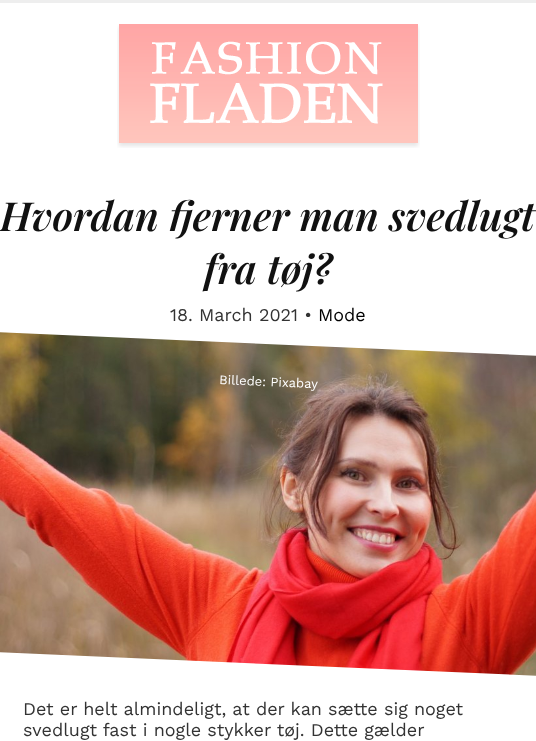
<svg xmlns="http://www.w3.org/2000/svg" width="536" height="741">
	<rect width="100%" height="100%" fill="#FFFFFF" />
	<rect x="0" y="0" width="536" height="3" fill="#EEEEEE" />
	<image x="117" y="24" width="303" height="124" href="assets/img1.png" />
	<g font-family="Playfair Display" font-size="40" font-weight="600" font-style="italic" fill="#111111">
		<text x="0" y="231">Hvordan fjerner man svedlugt</text>
		<text x="204" y="284">fra tøj?</text>
	</g>
	<text x="170" y="321" font-family="Work Sans" font-size="18" fill="#333333">18. March 2021 •</text>
	<text x="318" y="321" font-family="Work Sans" font-size="18" fill="#000000">Mode</text>
	<image x="0" y="332" width="536" height="344" href="assets/img2.png" />
	<text x="219" y="384" transform="rotate(2.5 219 384)" font-family="Work Sans" font-size="13" fill="#FFFFFF">Billede: Pixabay</text>
	<g font-family="Work Sans" font-size="18" fill="#333333">
		<text x="23" y="715">Det er helt almindeligt, at der kan sætte sig noget</text>
		<text x="23" y="736">svedlugt fast i nogle stykker tøj. Dette gælder</text>
	</g>
</svg>
